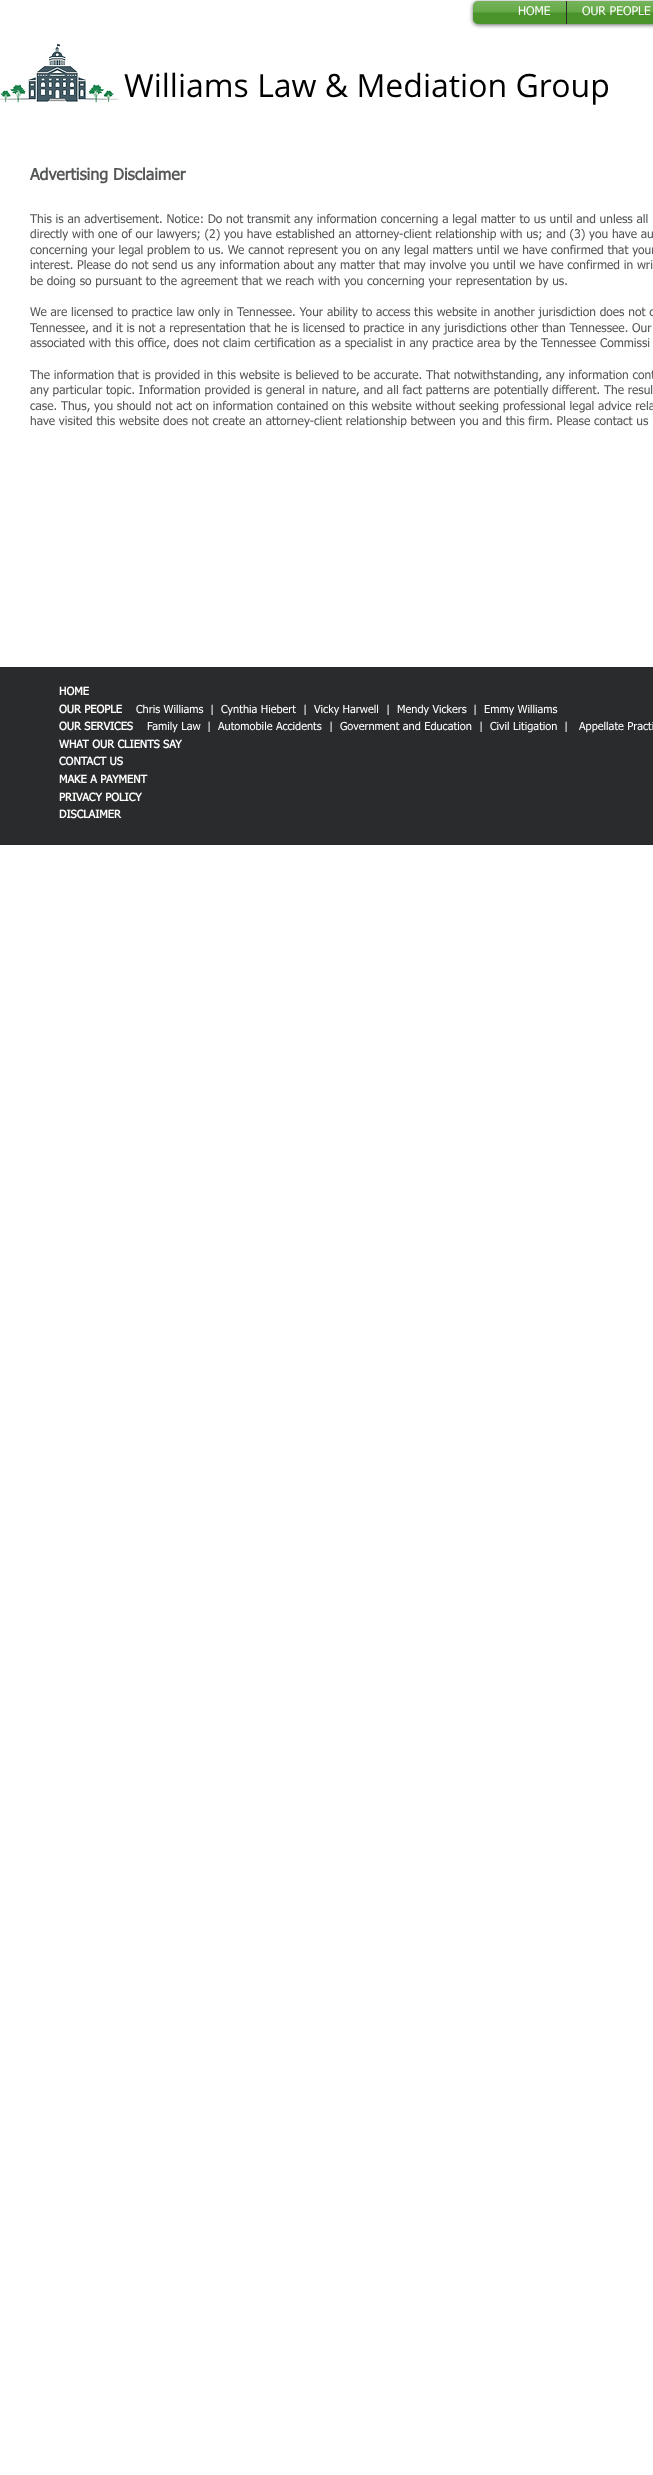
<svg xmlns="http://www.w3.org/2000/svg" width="653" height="2475">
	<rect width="100%" height="100%" fill="#FFFFFF" />
	<rect x="473" y="2" width="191" height="23" rx="5" fill="#000000" fill-opacity="0.6" filter="blur(2px)" />
	<rect x="473" y="1" width="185" height="23" rx="5" fill="#4F9E2D" />
	<image x="473" y="1" width="30" height="23" href="assets/img1.png" />
	<text x="518" y="15" font-family="tahoma" font-size="12" fill="#FFFFFF">HOME</text>
	<image x="503" y="1" width="63" height="23" href="assets/img2.png" />
	<rect x="566" y="1" width="1" height="23" fill="#2A2B2C" />
	<text x="582" y="15" font-family="tahoma" font-size="12" fill="#FFFFFF">OUR PEOPLE</text>
	<image x="567" y="1" width="86" height="23" href="assets/img3.png" />
	<image x="0" y="44" width="121" height="59" href="assets/img4.png" />
	<text x="124" y="97" font-family="Open Sans" font-size="32" fill="#000000">Williams Law &amp; Mediation Group</text>
	<text x="30" y="180" font-family="tahoma" font-size="16" font-weight="700" fill="#545658">Advertising Disclaimer</text>
	<g font-family="tahoma" font-size="12" fill="#545658">
		<text x="30" y="223">This is an advertisement. Notice: Do not transmit any information concerning a legal matter to us until and unless all</text>
		<text x="30" y="238">directly with one of our lawyers; (2) you have established an attorney-client relationship with us; and (3) you have au</text>
		<text x="30" y="254">concerning your legal problem to us. We cannot represent you on any legal matters until we have confirmed that your</text>
		<text x="30" y="269">interest. Please do not send us any information about any matter that may involve you until we have confirmed in wri</text>
		<text x="30" y="285">be doing so pursuant to the agreement that we reach with you concerning your representation by us.</text>
		<text x="30" y="316">We are licensed to practice law only in Tennessee. Your ability to access this website in another jurisdiction does not c</text>
		<text x="30" y="332">Tennessee, and it is not a representation that he is licensed to practice in any jurisdictions other than Tennessee. Our</text>
		<text x="30" y="347">associated with this office, does not claim certification as a specialist in any practice area by the Tennessee Commissi</text>
		<text x="30" y="379">The information that is provided in this website is believed to be accurate. That notwithstanding, any information cont</text>
		<text x="30" y="394">any particular topic. Information provided is general in nature, and all fact patterns are potentially different. The resul</text>
		<text x="30" y="410">case. Thus, you should not act on information contained on this website without seeking professional legal advice rela</text>
		<text x="30" y="425">have visited this website does not create an attorney-client relationship between you and this firm. Please contact us</text>
	</g>
	<rect x="0" y="667" width="653" height="178" fill="#2A2B2C" />
	<g font-family="tahoma" font-size="11" font-weight="700" fill="#FFFFFF">
		<text x="59" y="695">HOME</text>
		<text x="59" y="713">OUR PEOPLE</text>
	</g>
	<g font-family="tahoma" font-size="11" fill="#FFFFFF">
		<text x="136" y="713">Chris Williams</text>
		<text x="210" y="713">|</text>
		<text x="221" y="713">Cynthia Hiebert</text>
		<text x="303" y="713">|</text>
		<text x="314" y="713">Vicky Harwell</text>
		<text x="386" y="713">|</text>
		<text x="397" y="713">Mendy Vickers</text>
		<text x="473" y="713" xml:space="preserve">|  Emmy Williams</text>
	</g>
	<text x="59" y="730" font-family="tahoma" font-size="11" font-weight="700" fill="#FFFFFF">OUR SERVICES</text>
	<g font-family="tahoma" font-size="11" fill="#FFFFFF">
		<text x="147" y="730">Family Law</text>
		<text x="207" y="730">|</text>
		<text x="218" y="730">Automobile Accidents</text>
		<text x="329" y="730">|</text>
		<text x="340" y="730">Government and Education</text>
		<text x="479" y="730">|</text>
		<text x="490" y="730">Civil Litigation</text>
		<text x="564" y="730">|</text>
		<text x="579" y="730">Appellate Practi</text>
	</g>
	<g font-family="tahoma" font-size="11" font-weight="700" fill="#FFFFFF">
		<text x="59" y="748">WHAT OUR CLIENTS SAY</text>
		<text x="59" y="765">CONTACT US</text>
		<text x="59" y="783">MAKE A PAYMENT</text>
		<text x="59" y="801">PRIVACY POLICY</text>
		<text x="59" y="818">DISCLAIMER</text>
	</g>
</svg>
